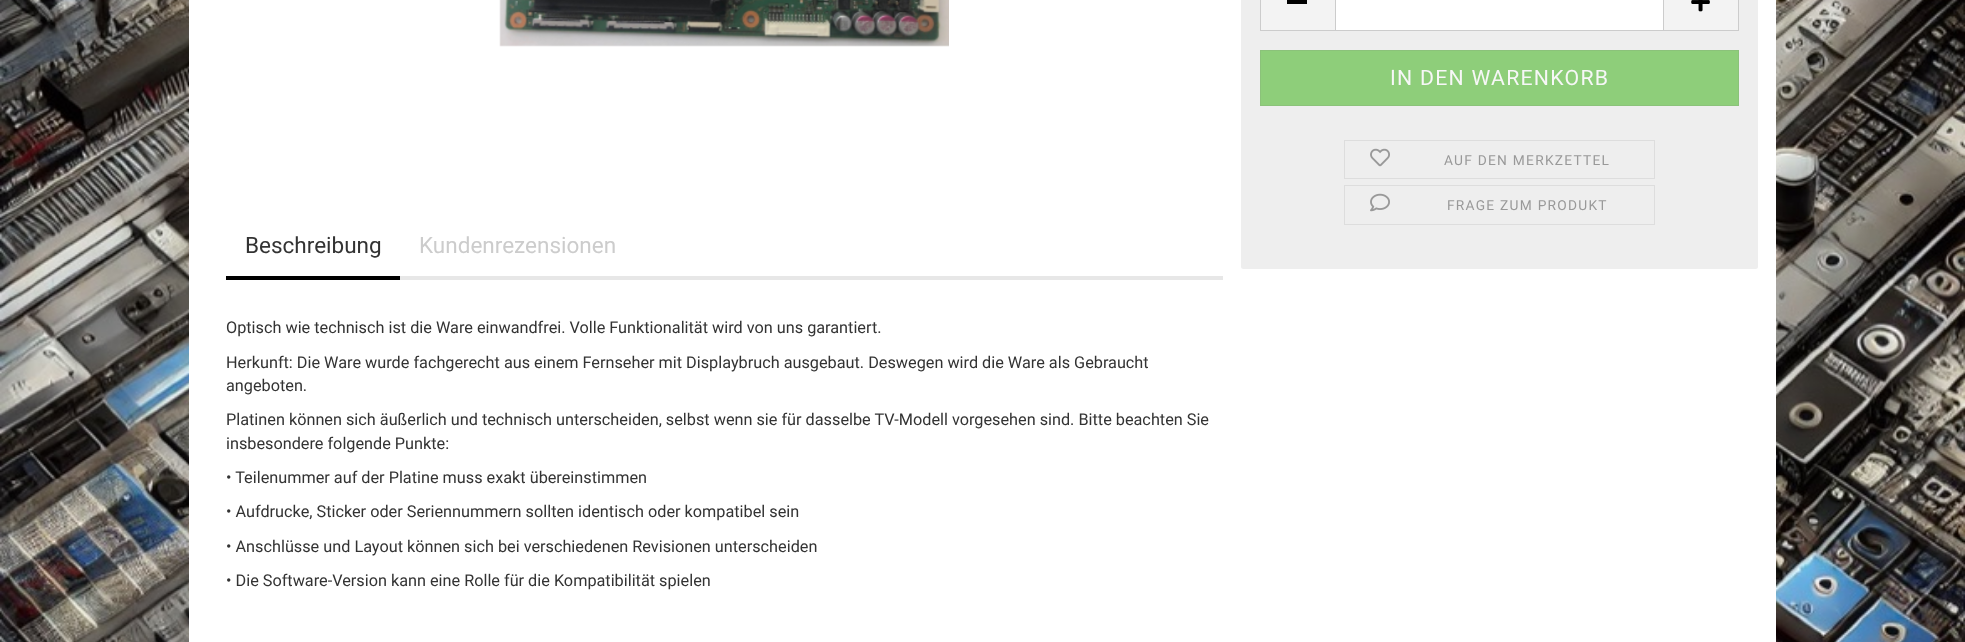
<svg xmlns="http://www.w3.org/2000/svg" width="1965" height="642">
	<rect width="100%" height="100%" fill="#FFFFFF" />
	<image x="0" y="0" width="1965" height="642" href="assets/img1.png" />
	<rect x="189" y="0" width="1587" height="642" fill="#FFFFFF" />
	<image x="499" y="0" width="450" height="47" href="assets/img2.png" />
	<rect x="1241" y="-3" width="517" height="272" rx="2.5" fill="#EEEEEE" />
	<rect x="1261" y="0" width="74" height="30" fill="#F3F3F3" />
	<rect x="1260" y="30" width="75" height="1" fill="#CCCCCC" />
	<rect x="1260" y="0" width="1" height="31" fill="#CCCCCC" />
	<rect x="1287" y="0" width="20" height="4" fill="#000000" />
	<rect x="1335.5" y="-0.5" width="328" height="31" fill="#FFFFFF" stroke="#CCCCCC" />
	<rect x="1664" y="0" width="74" height="30" fill="#F3F3F3" />
	<rect x="1738" y="0" width="1" height="31" fill="#CCCCCC" />
	<rect x="1664" y="30" width="75" height="1" fill="#CCCCCC" />
	<image x="1691" y="0" width="19" height="12" href="assets/img3.png" />
	<rect x="1260.5" y="50.5" width="478" height="55" fill="#8ECE7A" stroke="#8BC27A" />
	<text x="1390" y="85" font-family="Roboto" font-size="21.25" letter-spacing="1.25" fill="#F7F7F7">IN DEN WARENKORB</text>
	<rect x="1344.5" y="140.5" width="310" height="38" fill="none" stroke="#DDDDDD" />
	<image x="1370" y="148" width="20" height="19" href="assets/img4.png" />
	<text x="1444" y="165" font-family="Roboto" font-size="13.75" letter-spacing="1.25" fill="#999999">AUF DEN MERKZETTEL</text>
	<rect x="1344.5" y="185.5" width="310" height="39" fill="none" stroke="#DDDDDD" />
	<image x="1370" y="193" width="20" height="19" href="assets/img5.png" />
	<text x="1447" y="210" font-family="Roboto" font-size="13.75" letter-spacing="1.25" fill="#999999">FRAGE ZUM PRODUKT</text>
	<rect x="400" y="276" width="823" height="4" fill="#E7E7E7" />
	<rect x="226" y="276" width="174" height="4" fill="#000000" />
	<text x="245" y="253" font-family="Roboto" font-size="22.5" fill="#333333">Beschreibung</text>
	<text x="419" y="253" font-family="Roboto" font-size="22.5" fill="#CCCCCC">Kundenrezensionen</text>
	<g font-family="Roboto" font-size="16.25" fill="#333333">
		<text x="226" y="333">Optisch wie technisch ist die Ware einwandfrei. Volle Funktionalität wird von uns garantiert.</text>
		<text x="226" y="368">Herkunft: Die Ware wurde fachgerecht aus einem Fernseher mit Displaybruch ausgebaut. Deswegen wird die Ware als Gebraucht</text>
		<text x="226" y="391">angeboten.</text>
		<text x="226" y="425">Platinen können sich äußerlich und technisch unterscheiden, selbst wenn sie für dasselbe TV-Modell vorgesehen sind. Bitte beachten Sie</text>
		<text x="226" y="449">insbesondere folgende Punkte:</text>
		<text x="226" y="483">• Teilenummer auf der Platine muss exakt übereinstimmen</text>
		<text x="226" y="517">• Aufdrucke, Sticker oder Seriennummern sollten identisch oder kompatibel sein</text>
		<text x="226" y="552">• Anschlüsse und Layout können sich bei verschiedenen Revisionen unterscheiden</text>
		<text x="226" y="586">• Die Software-Version kann eine Rolle für die Kompatibilität spielen</text>
	</g>
</svg>
